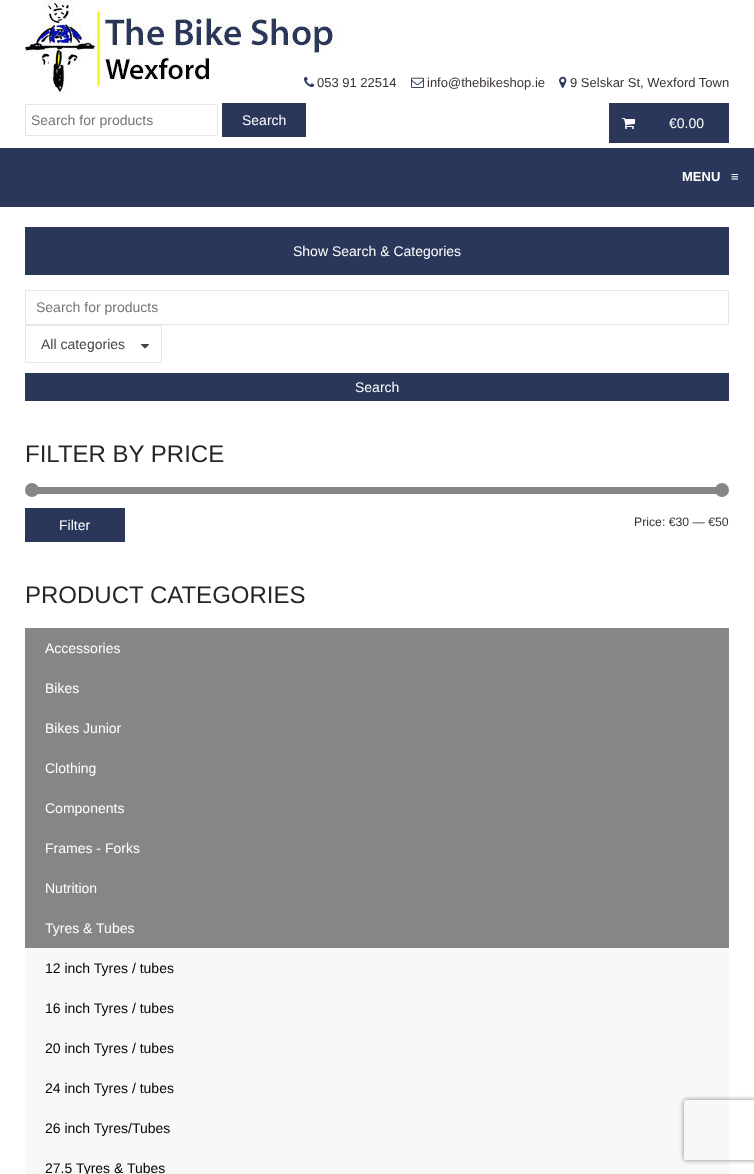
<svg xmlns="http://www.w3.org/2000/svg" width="754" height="1174">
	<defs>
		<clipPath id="clip1"><path d="M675 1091H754V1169H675ZM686 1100H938C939 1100 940 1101 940 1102V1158C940 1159 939 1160 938 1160H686C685 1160 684 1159 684 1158V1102C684 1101 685 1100 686 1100Z" clip-rule="evenodd" /></clipPath>
	</defs>
	<rect width="100%" height="100%" fill="#FFFFFF" />
	<image x="25" y="0" width="312" height="95" href="assets/img1.png" />
	<image x="304" y="76" width="11" height="11" href="assets/img2.png" />
	<text x="317" y="87" font-family="Liberation Sans" font-size="13" fill="#393232">053 91 22514</text>
	<image x="411" y="77" width="13" height="11" href="assets/img3.png" />
	<text x="427" y="87" font-family="Liberation Sans" font-size="13" fill="#393232">info@thebikeshop.ie</text>
	<image x="559" y="76" width="8" height="12" href="assets/img4.png" />
	<text x="570" y="87" font-family="Liberation Sans" font-size="13" fill="#393232">9 Selskar St, Wexford Town</text>
	<rect x="25.5" y="104.5" width="192" height="31" fill="none" stroke="#E8E5E5" />
	<text x="31" y="125" font-family="Liberation Sans" font-size="14" fill="#757575">Search for products</text>
	<rect x="222" y="103" width="84" height="34" fill="#2A375A" />
	<text x="242" y="125" font-family="Liberation Sans" font-size="14" fill="#FFFFFF">Search</text>
	<rect x="609" y="103" width="120" height="40" fill="#2A375A" />
	<image x="622" y="118" width="13" height="11" href="assets/img5.png" />
	<text x="669" y="128" font-family="Liberation Sans" font-size="14" fill="#FFFFFF">€0.00</text>
	<rect x="0" y="148" width="754" height="59" fill="#2A375A" />
	<g font-family="Liberation Sans" font-size="13" font-weight="700" fill="#FFFFFF">
		<text x="682" y="181">MENU</text>
		<text x="731" y="181">≡</text>
	</g>
	<rect x="25" y="227" width="704" height="48" fill="#2A375A" />
	<text x="293" y="256" font-family="Liberation Sans" font-size="14" fill="#FFFFFF">Show Search &amp; Categories</text>
	<rect x="25.5" y="290.5" width="703" height="34" fill="none" stroke="#E8E5E5" />
	<text x="36" y="312" font-family="Liberation Sans" font-size="14" fill="#757575">Search for products</text>
	<rect x="25.5" y="325.5" width="136" height="37" fill="none" stroke="#E8E5E5" />
	<text x="41" y="349" font-family="Liberation Sans" font-size="14" fill="#444444">All categories</text>
	<image x="141" y="344" width="8" height="5" href="assets/img6.png" />
	<rect x="25" y="373" width="704" height="28" fill="#2A375A" />
	<text x="355" y="392" font-family="Liberation Sans" font-size="14" fill="#FFFFFF">Search</text>
	<text x="25" y="462" font-family="Liberation Sans" font-size="24" fill="#252727">FILTER BY PRICE</text>
	<rect x="32" y="487" width="690" height="7" fill="#868686" />
	<circle cx="32" cy="490" r="7" fill="#868686" />
	<circle cx="722" cy="490" r="7" fill="#868686" />
	<rect x="25" y="508" width="100" height="34" fill="#2A375A" />
	<text x="59" y="530" font-family="Liberation Sans" font-size="14" fill="#FFFFFF">Filter</text>
	<text x="634" y="526" font-family="Liberation Sans" font-size="12.25" fill="#393232">Price: €30 — €50</text>
	<text x="25" y="603" font-family="Liberation Sans" font-size="24" fill="#252727">PRODUCT CATEGORIES</text>
	<rect x="25" y="628" width="704" height="320" fill="#868686" />
	<g font-family="Liberation Sans" font-size="14" fill="#FFFFFF">
		<text x="45" y="653">Accessories</text>
		<text x="45" y="693">Bikes</text>
		<text x="45" y="733">Bikes Junior</text>
		<text x="45" y="773">Clothing</text>
		<text x="45" y="813">Components</text>
		<text x="45" y="853">Frames - Forks</text>
		<text x="45" y="893">Nutrition</text>
		<text x="45" y="933">Tyres &amp; Tubes</text>
	</g>
	<rect x="25" y="948" width="704" height="226" fill="#F8F8F8" />
	<g font-family="Liberation Sans" font-size="14" fill="#000000">
		<text x="45" y="973">12 inch Tyres / tubes</text>
		<text x="45" y="1013">16 inch Tyres / tubes</text>
		<text x="45" y="1053">20 inch Tyres / tubes</text>
		<text x="45" y="1093">24 inch Tyres / tubes</text>
		<text x="45" y="1133">26 inch Tyres/Tubes</text>
		<text x="45" y="1173">27.5 Tyres &amp; Tubes</text>
	</g>
	<g clip-path="url(#clip1)">
		<rect x="684" y="1100" width="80" height="60" rx="2" fill="#808080" filter="blur(2.5px)" />
	</g>
</svg>
